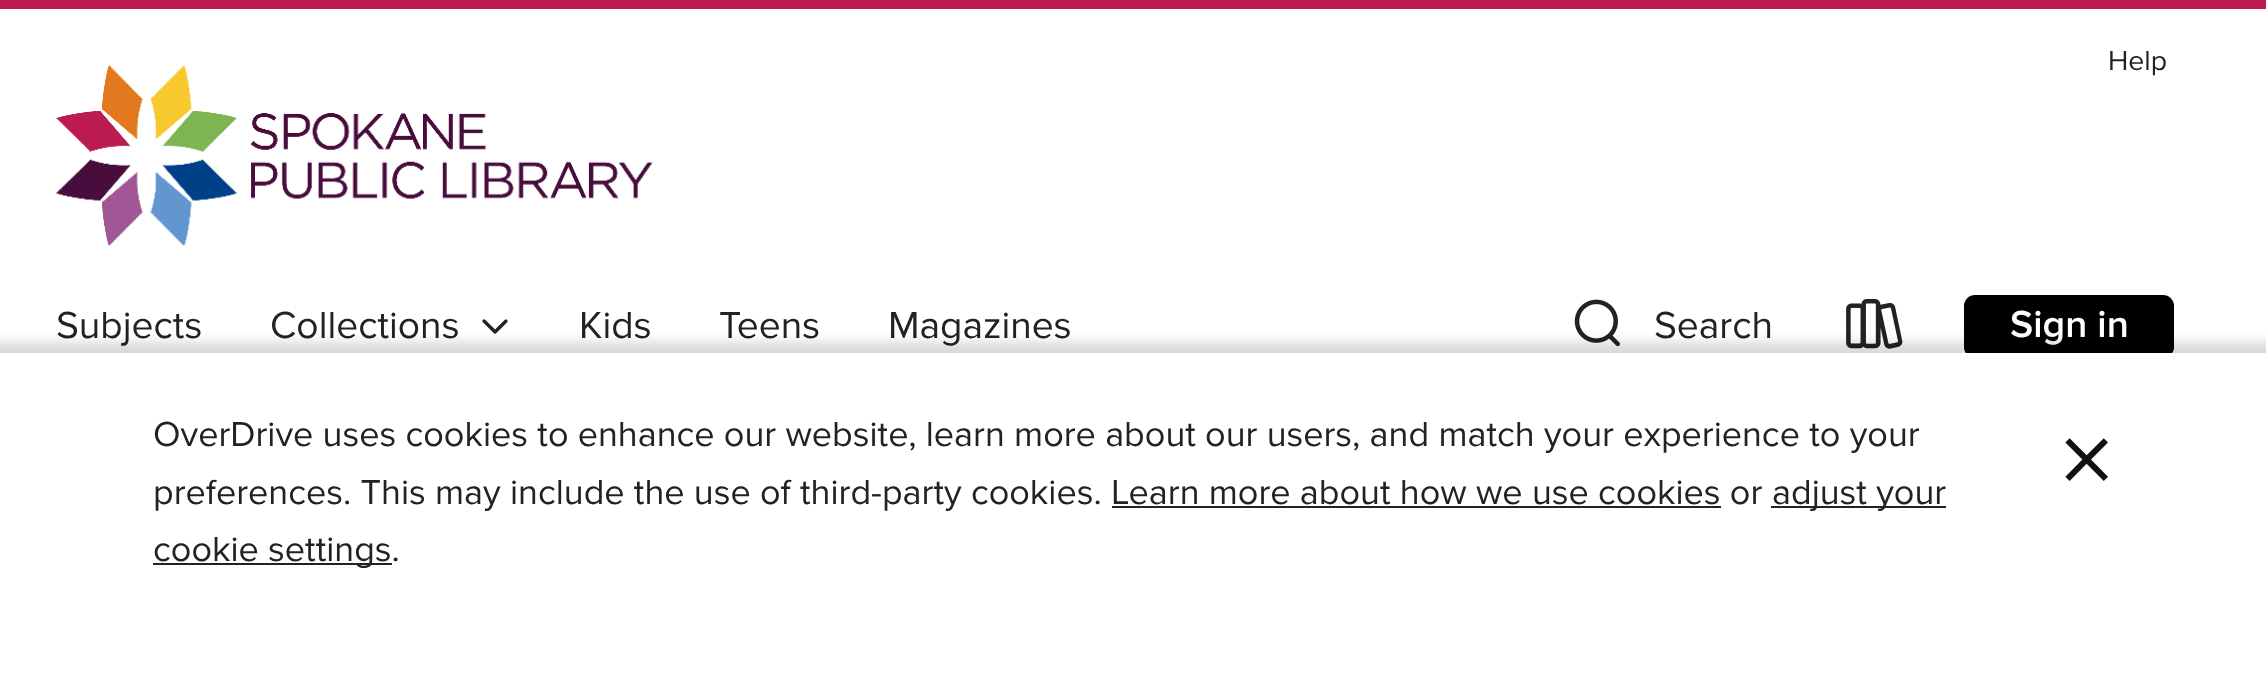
<svg xmlns="http://www.w3.org/2000/svg" width="2266" height="679">
	<rect width="100%" height="100%" fill="#FFFFFF" />
	<rect x="0" y="0" width="2266" height="9" fill="#BB1B51" />
	<image x="56" y="65" width="597" height="181" href="assets/img1.png" />
	<text x="2108" y="70" font-family="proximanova" font-size="28.5" fill="#222222">Help</text>
	<g font-family="proximanova" font-size="39" fill="#222222">
		<text x="56" y="338">Subjects</text>
		<text x="270" y="338">Collections</text>
	</g>
	<image x="482" y="319" width="26" height="15" href="assets/img2.png" />
	<g font-family="proximanova" font-size="39" fill="#222222">
		<text x="579" y="338">Kids</text>
		<text x="719" y="338">Teens</text>
		<text x="888" y="338">Magazines</text>
	</g>
	<image x="1574" y="299" width="46" height="48" href="assets/img3.png" />
	<text x="1654" y="338" font-family="proximanova" font-size="39" fill="#222222">Search</text>
	<image x="1846" y="299" width="57" height="50" href="assets/img4.png" />
	<rect x="1964" y="295" width="210" height="63" rx="11" fill="#000000" />
	<text x="2010" y="337" font-family="Proxima Nova" font-size="39" font-weight="600" fill="#FFFFFF">Sign in</text>
	<rect x="-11" y="342" width="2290" height="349" fill="#000000" fill-opacity="0.15" filter="blur(5.5px)" />
	<rect x="0" y="353" width="2266" height="326" fill="#FFFFFF" />
	<g font-family="proximanova" font-size="36" fill="#222222">
		<text x="153" y="446">OverDrive uses cookies to enhance our website, learn more about our users, and match your experience to your</text>
		<text x="153" y="504">preferences. This may include the use of third-party cookies. Learn more about how we use cookies or</text>
	</g>
	<rect x="1112" y="506" width="609" height="2" fill="#222222" />
	<rect x="1771" y="506" width="175" height="2" fill="#222222" />
	<text x="1772" y="504" font-family="proximanova" font-size="36" fill="#222222">adjust your</text>
	<rect x="153" y="563" width="239" height="2" fill="#222222" />
	<text x="153" y="561" font-family="proximanova" font-size="36" fill="#222222">cookie settings.</text>
	<text x="2058" y="498" font-family="proximanova" font-size="115" fill="#111111">×</text>
</svg>
